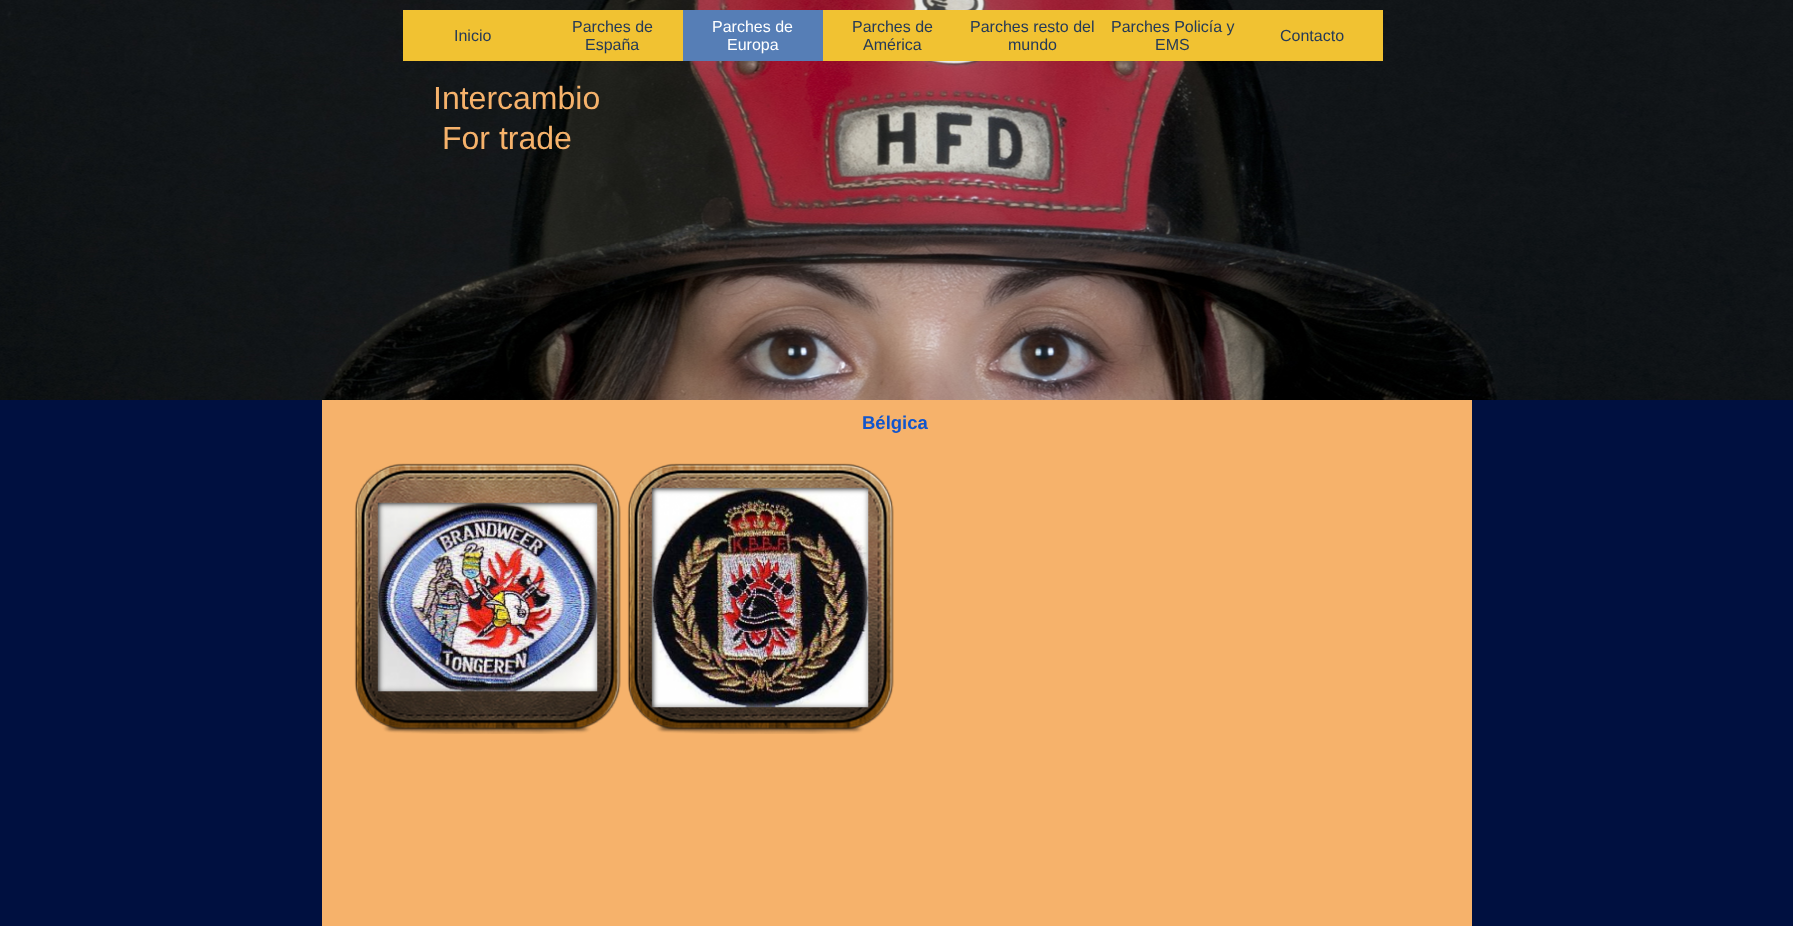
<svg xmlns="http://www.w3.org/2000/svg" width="1793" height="926">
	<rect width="100%" height="100%" fill="#001040" />
	<image x="0" y="0" width="1793" height="400" href="assets/img1.png" />
	<rect x="403" y="10" width="280" height="51" fill="#F1C232" />
	<g font-family="Liberation Sans" font-size="16" fill="#253A58">
		<text x="454" y="41">Inicio</text>
		<text x="572" y="32">Parches de</text>
		<text x="585" y="50">España</text>
	</g>
	<rect x="683" y="10" width="140" height="51" fill="#567EB6" />
	<g font-family="Liberation Sans" font-size="16" fill="#FFFFFF">
		<text x="712" y="32">Parches de</text>
		<text x="727" y="50">Europa</text>
	</g>
	<rect x="823" y="10" width="560" height="51" fill="#F1C232" />
	<g font-family="Liberation Sans" font-size="16" fill="#253A58">
		<text x="852" y="32">Parches de</text>
		<text x="863" y="50">América</text>
		<text x="970" y="32">Parches resto del</text>
		<text x="1008" y="50">mundo</text>
		<text x="1111" y="32">Parches Policía y</text>
		<text x="1155" y="50">EMS</text>
		<text x="1280" y="41">Contacto</text>
	</g>
	<g font-family="Liberation Sans" font-size="32" fill="#F6B26B">
		<text x="433" y="109">Intercambio</text>
		<text x="442" y="149">For trade</text>
	</g>
	<rect x="322" y="400" width="1150" height="526" fill="#F6B26B" />
	<text x="862" y="429" font-family="Liberation Sans" font-size="18.5" font-weight="700" fill="#1155CC">Bélgica</text>
	<image x="354" y="463" width="267" height="271" href="assets/img2.png" />
	<image x="627" y="463" width="267" height="271" href="assets/img3.png" />
</svg>
